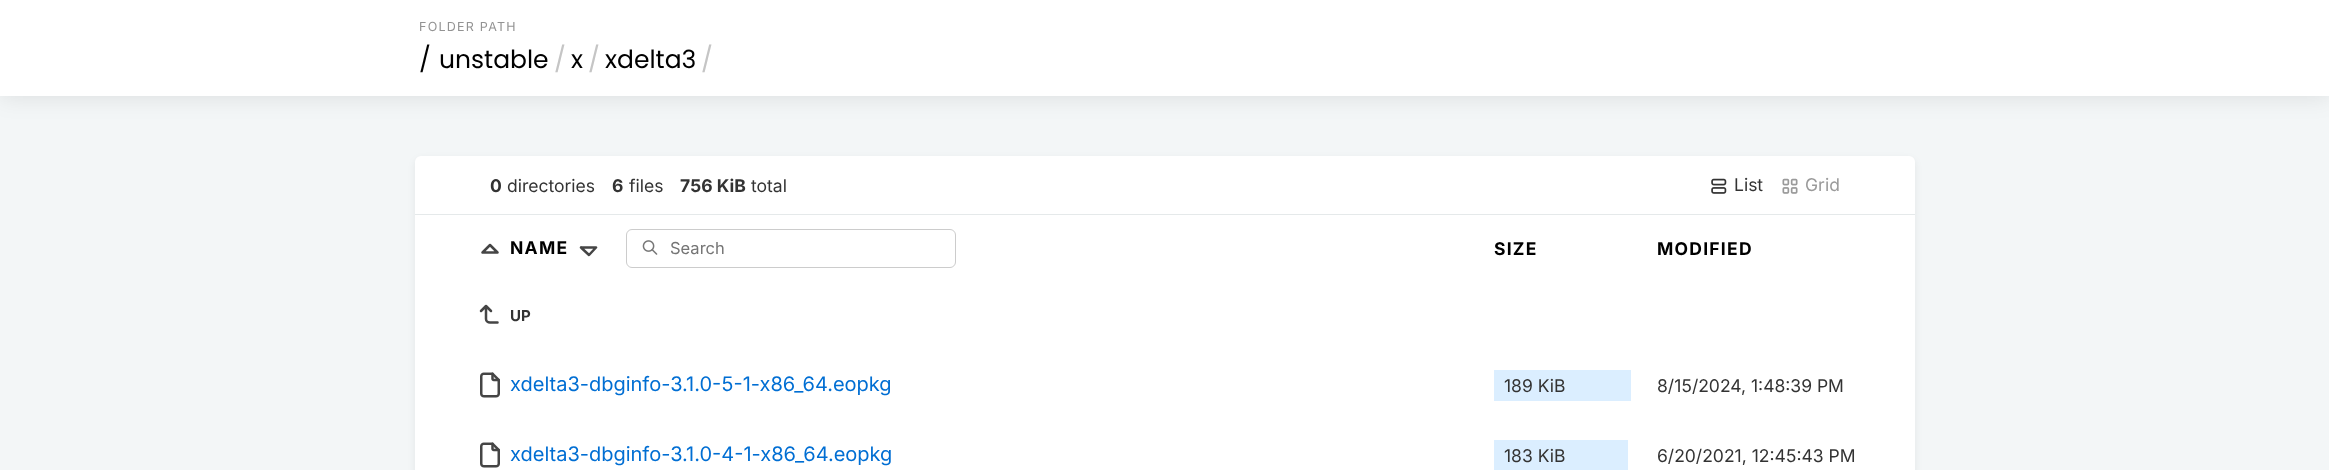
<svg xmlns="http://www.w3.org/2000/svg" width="2329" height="470">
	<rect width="100%" height="100%" fill="#F3F6F7" />
	<rect x="0" y="0" width="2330" height="96" fill="#000000" fill-opacity="0.1" filter="blur(12.5px)" />
	<rect x="0" y="0" width="2329" height="96" fill="#FFFFFF" />
	<text x="419" y="31" font-family="Inter" font-size="12.5" letter-spacing="1.25" fill="#939393">FOLDER PATH</text>
	<g font-family="Poppins" font-size="25" fill="#000000">
		<text x="419" y="68">/</text>
		<text x="439" y="68">unstable</text>
	</g>
	<text x="554" y="68" font-family="Poppins" font-size="25" fill="#C5C5C5">/</text>
	<text x="571" y="68" font-family="Poppins" font-size="25" fill="#000000">x</text>
	<text x="588" y="68" font-family="Poppins" font-size="25" fill="#C5C5C5">/</text>
	<text x="605" y="68" font-family="Poppins" font-size="25" fill="#000000">xdelta3</text>
	<text x="701" y="68" font-family="Poppins" font-size="25" fill="#C5C5C5">/</text>
	<rect x="414" y="158" width="1502" height="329" rx="8" fill="#000000" fill-opacity="0.05" filter="blur(3px)" />
	<rect x="415" y="156" width="1500" height="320" rx="6" fill="#FFFFFF" />
	<rect x="415" y="214" width="1500" height="1" fill="#E5E9EA" />
	<text x="490" y="192" font-family="Inter" font-size="17.5" font-weight="700" fill="#333333">0</text>
	<text x="507" y="192" font-family="Inter" font-size="17.5" fill="#333333">directories</text>
	<text x="612" y="192" font-family="Inter" font-size="17.5" font-weight="700" fill="#333333">6</text>
	<text x="629" y="192" font-family="Inter" font-size="17.5" fill="#333333">files</text>
	<text x="680" y="192" font-family="Inter" font-size="17.5" font-weight="700" fill="#333333">756 KiB</text>
	<text x="751" y="192" font-family="Inter" font-size="17.5" fill="#333333">total</text>
	<image x="1711" y="178" width="16" height="16" href="assets/img1.png" />
	<text x="1734" y="191" font-family="Inter" font-size="17.5" fill="#333333">List</text>
	<image x="1782" y="178" width="16" height="16" href="assets/img2.png" />
	<text x="1805" y="191" font-family="Inter" font-size="17.5" fill="#9A9A9A">Grid</text>
	<path d="M497.5 252.5L490 245L482.5 252.5H497.5" fill="none" stroke="#454545" stroke-width="2.5" stroke-linecap="round" stroke-linejoin="round" />
	<text x="510" y="254" font-family="Inter" font-size="17.5" font-weight="700" letter-spacing="1.25" fill="#000000">NAME</text>
	<path d="M581 247.5L589 255L596 247.5H581" fill="none" stroke="#454545" stroke-width="2.5" stroke-linecap="round" stroke-linejoin="round" />
	<image x="642" y="240" width="16" height="15" href="assets/img3.png" />
	<rect x="626.5" y="229.5" width="329" height="38" rx="5.5" fill="none" stroke="#CCCCCC" />
	<text x="670" y="254" font-family="Inter" font-size="16.5" fill="#757575">Search</text>
	<g font-family="Inter" font-size="17.5" font-weight="700" letter-spacing="1.25" fill="#000000">
		<text x="1494" y="255">SIZE</text>
		<text x="1657" y="255">MODIFIED</text>
	</g>
	<path d="M497.5 322.5H490C488 322.5 486 321 486 319V306L481 311M491 311L486 306" fill="none" stroke="#454545" stroke-width="2.5" stroke-linecap="round" stroke-linejoin="round" />
	<text x="510" y="321" font-family="Inter" font-size="15" font-weight="700" fill="#333333">UP</text>
	<image x="480" y="372" width="20" height="26" href="assets/img4.png" />
	<text x="510" y="391" font-family="Inter" font-size="20" fill="#006ED3">xdelta3-dbginfo-3.1.0-5-1-x86_64.eopkg</text>
	<rect x="1494" y="370" width="137" height="31" fill="#DBEEFF" />
	<g font-family="Inter" font-size="17.5" fill="#333333">
		<text x="1504" y="392">189 KiB</text>
		<text x="1657" y="392">8/15/2024, 1:48:39 PM</text>
	</g>
	<image x="480" y="442" width="20" height="26" href="assets/img4.png" />
	<text x="510" y="461" font-family="Inter" font-size="20" fill="#006ED3">xdelta3-dbginfo-3.1.0-4-1-x86_64.eopkg</text>
	<rect x="1494" y="440" width="134" height="30" fill="#DBEEFF" />
	<g font-family="Inter" font-size="17.5" fill="#333333">
		<text x="1504" y="462">183 KiB</text>
		<text x="1657" y="462">6/20/2021, 12:45:43 PM</text>
	</g>
</svg>
